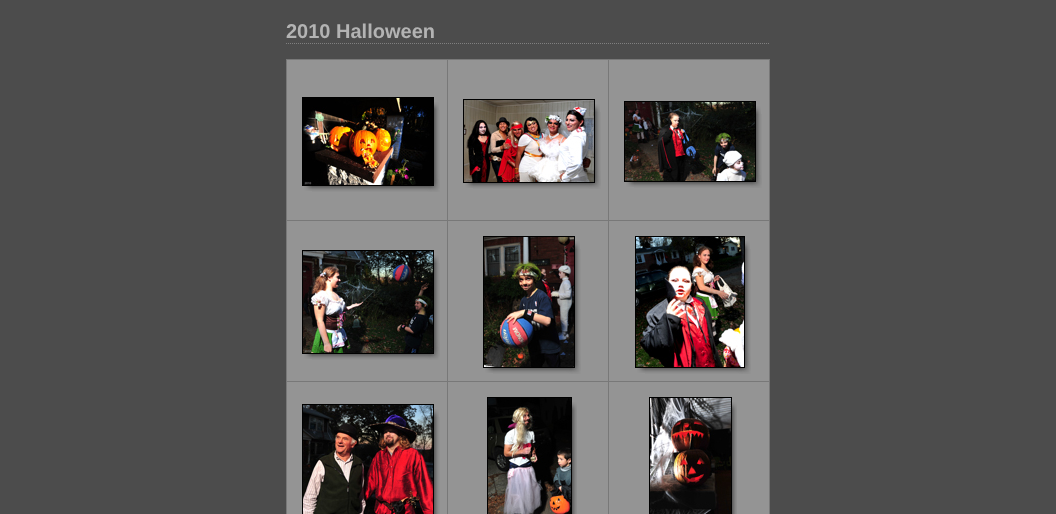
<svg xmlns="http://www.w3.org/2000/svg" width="1056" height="514">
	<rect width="100%" height="100%" fill="#4C4C4C" />
	<path d="M286 43.5H770" fill="none" stroke="#7F7F7F" stroke-dasharray="1 1" />
	<text x="286" y="38" font-family="Liberation Sans" font-size="20" font-weight="700" fill="#B3B3B3">2010 Halloween</text>
	<rect x="287" y="60" width="160" height="160" fill="#949494" />
	<rect x="286" y="59" width="484" height="1" fill="#787878" />
	<rect x="286" y="59" width="1" height="161" fill="#787878" />
	<image x="312" y="110" width="128" height="82" href="assets/img1.png" />
	<rect x="302.5" y="97.5" width="131" height="88" fill="none" stroke="#000000" />
	<image x="303" y="98" width="130" height="87" href="assets/img2.png" />
	<image x="434" y="102" width="5" height="8" href="assets/img3.png" />
	<image x="304" y="186" width="8" height="5" href="assets/img4.png" />
	<rect x="448" y="60" width="160" height="160" fill="#949494" />
	<rect x="447" y="59" width="1" height="161" fill="#787878" />
	<image x="473" y="112" width="128" height="77" href="assets/img5.png" />
	<rect x="463.5" y="99.5" width="131" height="83" fill="none" stroke="#000000" />
	<image x="464" y="100" width="130" height="82" href="assets/img6.png" />
	<image x="595" y="104" width="5" height="8" href="assets/img3.png" />
	<image x="465" y="183" width="8" height="5" href="assets/img4.png" />
	<rect x="609" y="60" width="160" height="160" fill="#949494" />
	<rect x="769" y="59" width="1" height="161" fill="#787878" />
	<rect x="608" y="59" width="1" height="161" fill="#787878" />
	<image x="634" y="114" width="128" height="74" href="assets/img7.png" />
	<rect x="624.5" y="101.5" width="131" height="80" fill="none" stroke="#000000" />
	<image x="625" y="102" width="130" height="79" href="assets/img8.png" />
	<image x="756" y="106" width="5" height="8" href="assets/img3.png" />
	<image x="626" y="182" width="8" height="5" href="assets/img4.png" />
	<rect x="287" y="221" width="160" height="160" fill="#949494" />
	<rect x="286" y="220" width="484" height="1" fill="#787878" />
	<rect x="286" y="220" width="1" height="161" fill="#787878" />
	<image x="312" y="263" width="128" height="97" href="assets/img9.png" />
	<rect x="302.5" y="250.5" width="131" height="103" fill="none" stroke="#000000" />
	<image x="303" y="251" width="130" height="102" href="assets/img10.png" />
	<image x="434" y="255" width="5" height="8" href="assets/img3.png" />
	<image x="304" y="354" width="8" height="5" href="assets/img4.png" />
	<rect x="448" y="221" width="160" height="160" fill="#949494" />
	<rect x="447" y="220" width="1" height="161" fill="#787878" />
	<image x="493" y="249" width="88" height="125" href="assets/img11.png" />
	<rect x="483.5" y="236.5" width="91" height="131" fill="none" stroke="#000000" />
	<image x="484" y="237" width="90" height="130" href="assets/img12.png" />
	<image x="575" y="241" width="5" height="8" href="assets/img3.png" />
	<image x="485" y="368" width="8" height="5" href="assets/img4.png" />
	<rect x="609" y="221" width="160" height="160" fill="#949494" />
	<rect x="769" y="220" width="1" height="161" fill="#787878" />
	<rect x="608" y="220" width="1" height="161" fill="#787878" />
	<image x="645" y="249" width="106" height="125" href="assets/img13.png" />
	<rect x="635.5" y="236.5" width="109" height="131" fill="none" stroke="#000000" />
	<image x="636" y="237" width="108" height="130" href="assets/img14.png" />
	<image x="745" y="241" width="5" height="8" href="assets/img3.png" />
	<image x="637" y="368" width="8" height="5" href="assets/img4.png" />
	<rect x="287" y="382" width="160" height="132" fill="#949494" />
	<rect x="286" y="381" width="484" height="1" fill="#787878" />
	<rect x="286" y="381" width="1" height="133" fill="#787878" />
	<image x="434" y="417" width="6" height="97" href="assets/img15.png" />
	<rect x="302.5" y="404.5" width="131" height="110" fill="none" stroke="#000000" />
	<image x="303" y="405" width="130" height="109" href="assets/img16.png" />
	<image x="434" y="409" width="5" height="8" href="assets/img3.png" />
	<rect x="448" y="382" width="160" height="132" fill="#949494" />
	<rect x="447" y="381" width="1" height="133" fill="#787878" />
	<image x="572" y="410" width="5" height="104" href="assets/img17.png" />
	<rect x="487.5" y="397.5" width="84" height="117" fill="none" stroke="#000000" />
	<image x="488" y="398" width="83" height="116" href="assets/img18.png" />
	<image x="572" y="402" width="5" height="8" href="assets/img3.png" />
	<rect x="609" y="382" width="160" height="132" fill="#949494" />
	<rect x="769" y="381" width="1" height="133" fill="#787878" />
	<rect x="608" y="381" width="1" height="133" fill="#787878" />
	<image x="732" y="410" width="5" height="104" href="assets/img17.png" />
	<rect x="649.5" y="397.5" width="82" height="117" fill="none" stroke="#000000" />
	<image x="650" y="398" width="81" height="116" href="assets/img19.png" />
	<image x="732" y="402" width="5" height="8" href="assets/img3.png" />
</svg>
